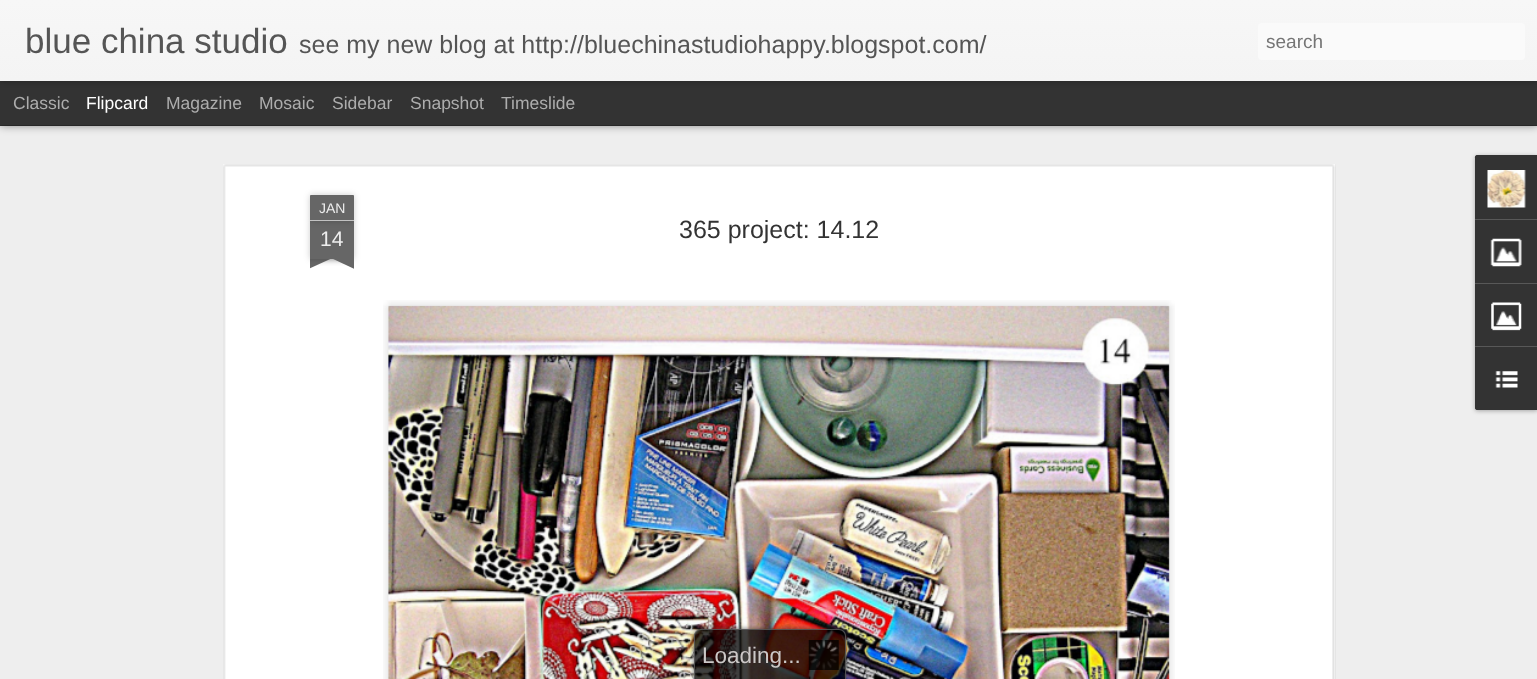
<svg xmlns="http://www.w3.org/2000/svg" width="1537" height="679">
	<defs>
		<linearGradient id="g1" gradientUnits="userSpaceOnUse" x1="0" y1="0" x2="0" y2="81"><stop offset="0" stop-color="#F7F7F7" /><stop offset="1" stop-color="#F4F4F4" /></linearGradient>
		<clipPath id="clip1"><rect x="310" y="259" width="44" height="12" /></clipPath>
		<clipPath id="clip2"><rect x="310" y="259" width="44" height="12" /></clipPath>
		<clipPath id="clip3"><path d="M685 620H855V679H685ZM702 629H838C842.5 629 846 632.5 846 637V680H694V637C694 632.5 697.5 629 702 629Z" clip-rule="evenodd" /></clipPath>
	</defs>
	<rect width="100%" height="100%" fill="#333333" />
	<rect x="0" y="126" width="1537" height="553" fill="#EEEEEE" />
	<rect x="0" y="81" width="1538" height="44" fill="#000000" fill-opacity="0.5" filter="blur(5px)" />
	<rect x="0" y="81" width="1537" height="44" fill="#333333" />
	<rect x="0" y="0" width="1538" height="81" fill="#000000" fill-opacity="0.3" filter="blur(3px)" />
	<rect x="0" y="0" width="1537" height="81" fill="url(#g1)" />
	<text x="25" y="53" font-family="Liberation Sans" font-size="35" fill="#555555">blue china studio</text>
	<text x="299" y="53" font-family="Liberation Sans" font-size="25" fill="#555555">see my new blog at http://bluechinastudiohappy.blogspot.com/</text>
	<rect x="1258" y="23" width="267" height="37" rx="4" fill="#FAFAFA" />
	<text x="1266" y="48" font-family="Liberation Sans" font-size="19" fill="#757575">search</text>
	<text x="13" y="109" font-family="Liberation Sans" font-size="17.5" fill="#ADADAD">Classic</text>
	<text x="86" y="109" font-family="Liberation Sans" font-size="17.5" fill="#FFFFFF">Flipcard</text>
	<g font-family="Liberation Sans" font-size="17.5" fill="#ADADAD">
		<text x="166" y="109">Magazine</text>
		<text x="259" y="109">Mosaic</text>
		<text x="332" y="109">Sidebar</text>
		<text x="410" y="109">Snapshot</text>
		<text x="501" y="109">Timeslide</text>
	</g>
	<rect x="223" y="164" width="1112" height="515" fill="#FFFFFF" />
	<image x="223" y="164" width="1113" height="515" href="assets/img1.png" />
	<rect x="310" y="221" width="44" height="38" fill="#000000" fill-opacity="0.2" filter="blur(3px)" />
	<rect x="310" y="221" width="44" height="38" fill="#666666" />
	<rect x="310" y="195" width="44" height="26" rx="1" fill="#000000" fill-opacity="0.2" filter="blur(3px)" />
	<path d="M311 195H353C353.5 195 354 195.5 354 196V221H310V196C310 195.5 310.5 195 311 195Z" fill="#666666" />
	<rect x="310" y="220" width="44" height="1" fill="#C2C2C2" />
	<text x="319" y="213" font-family="Liberation Sans" font-size="14" fill="#EEEEEE">JAN</text>
	<text x="320" y="246" font-family="Liberation Sans" font-size="21" fill="#EEEEEE">14</text>
	<g clip-path="url(#clip1)">
		<rect x="299" y="246" width="62" height="13" fill="#000000" fill-opacity="0.2" filter="blur(3px)" />
	</g>
	<g clip-path="url(#clip2)">
		<path d="M299 260L356 234L361 245L304 271Z" fill="#666666" />
	</g>
	<g clip-path="url(#clip1)">
		<rect x="303" y="246" width="62" height="13" fill="#000000" fill-opacity="0.2" filter="blur(3px)" />
	</g>
	<g clip-path="url(#clip2)">
		<path d="M308 234L365 260L359 271L303 245Z" fill="#666666" />
	</g>
	<text x="679" y="238" font-family="Liberation Sans" font-size="25" fill="#333333">365 project: 14.12</text>
	<image x="383" y="300" width="792" height="379" href="assets/img2.png" />
	<image x="388" y="305" width="782" height="374" href="assets/img3.png" />
	<rect x="1475" y="156" width="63" height="255" rx="2.5" fill="#000000" fill-opacity="0.3" filter="blur(2px)" />
	<path d="M1477.5 155H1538V410H1477.5C1476 410 1475 409 1475 407.5V157.5C1475 156 1476 155 1477.5 155Z" fill="#333333" />
	<path d="M1477.5 155H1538V219H1475V157.5C1475 156 1476 155 1477.5 155Z" fill="#333333" />
	<image x="1487" y="170" width="39" height="38" href="assets/img4.png" />
	<rect x="1475" y="219" width="62" height="1" fill="#585858" />
	<image x="1490" y="238" width="32" height="29" href="assets/img5.png" />
	<rect x="1475" y="283" width="62" height="1" fill="#585858" />
	<image x="1491" y="302" width="31" height="29" href="assets/img6.png" />
	<path d="M1475 346H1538V410H1477.5C1476 410 1475 409 1475 407.5Z" fill="#333333" />
	<rect x="1475" y="346" width="62" height="1" fill="#585858" />
	<image x="1495" y="371" width="23" height="17" href="assets/img7.png" />
	<g clip-path="url(#clip3)">
		<rect x="694" y="629" width="152" height="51" rx="8" fill="#333333" fill-opacity="0.75" filter="blur(2.5px)" />
	</g>
	<path d="M702 629H838C842.5 629 846 632.5 846 637V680H694V637C694 632.5 697.5 629 702 629Z" fill="#000000" fill-opacity="0.75" />
	<path d="M701 629H839C843 629 846 632 846 636V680H694V636C694 632 697 629 701 629ZM701 630H839C842 630 845 633 845 636V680H695V636C695 633 698 630 701 630Z" fill="#666666" fill-opacity="0.75" fill-rule="evenodd" />
	<image x="808" y="640" width="31" height="30" href="assets/img8.png" />
	<g font-family="Liberation Sans" font-size="22.5" fill="#CCC8C7">
		<text x="702" y="663">Loading</text>
		<text x="782" y="663">...</text>
	</g>
</svg>
